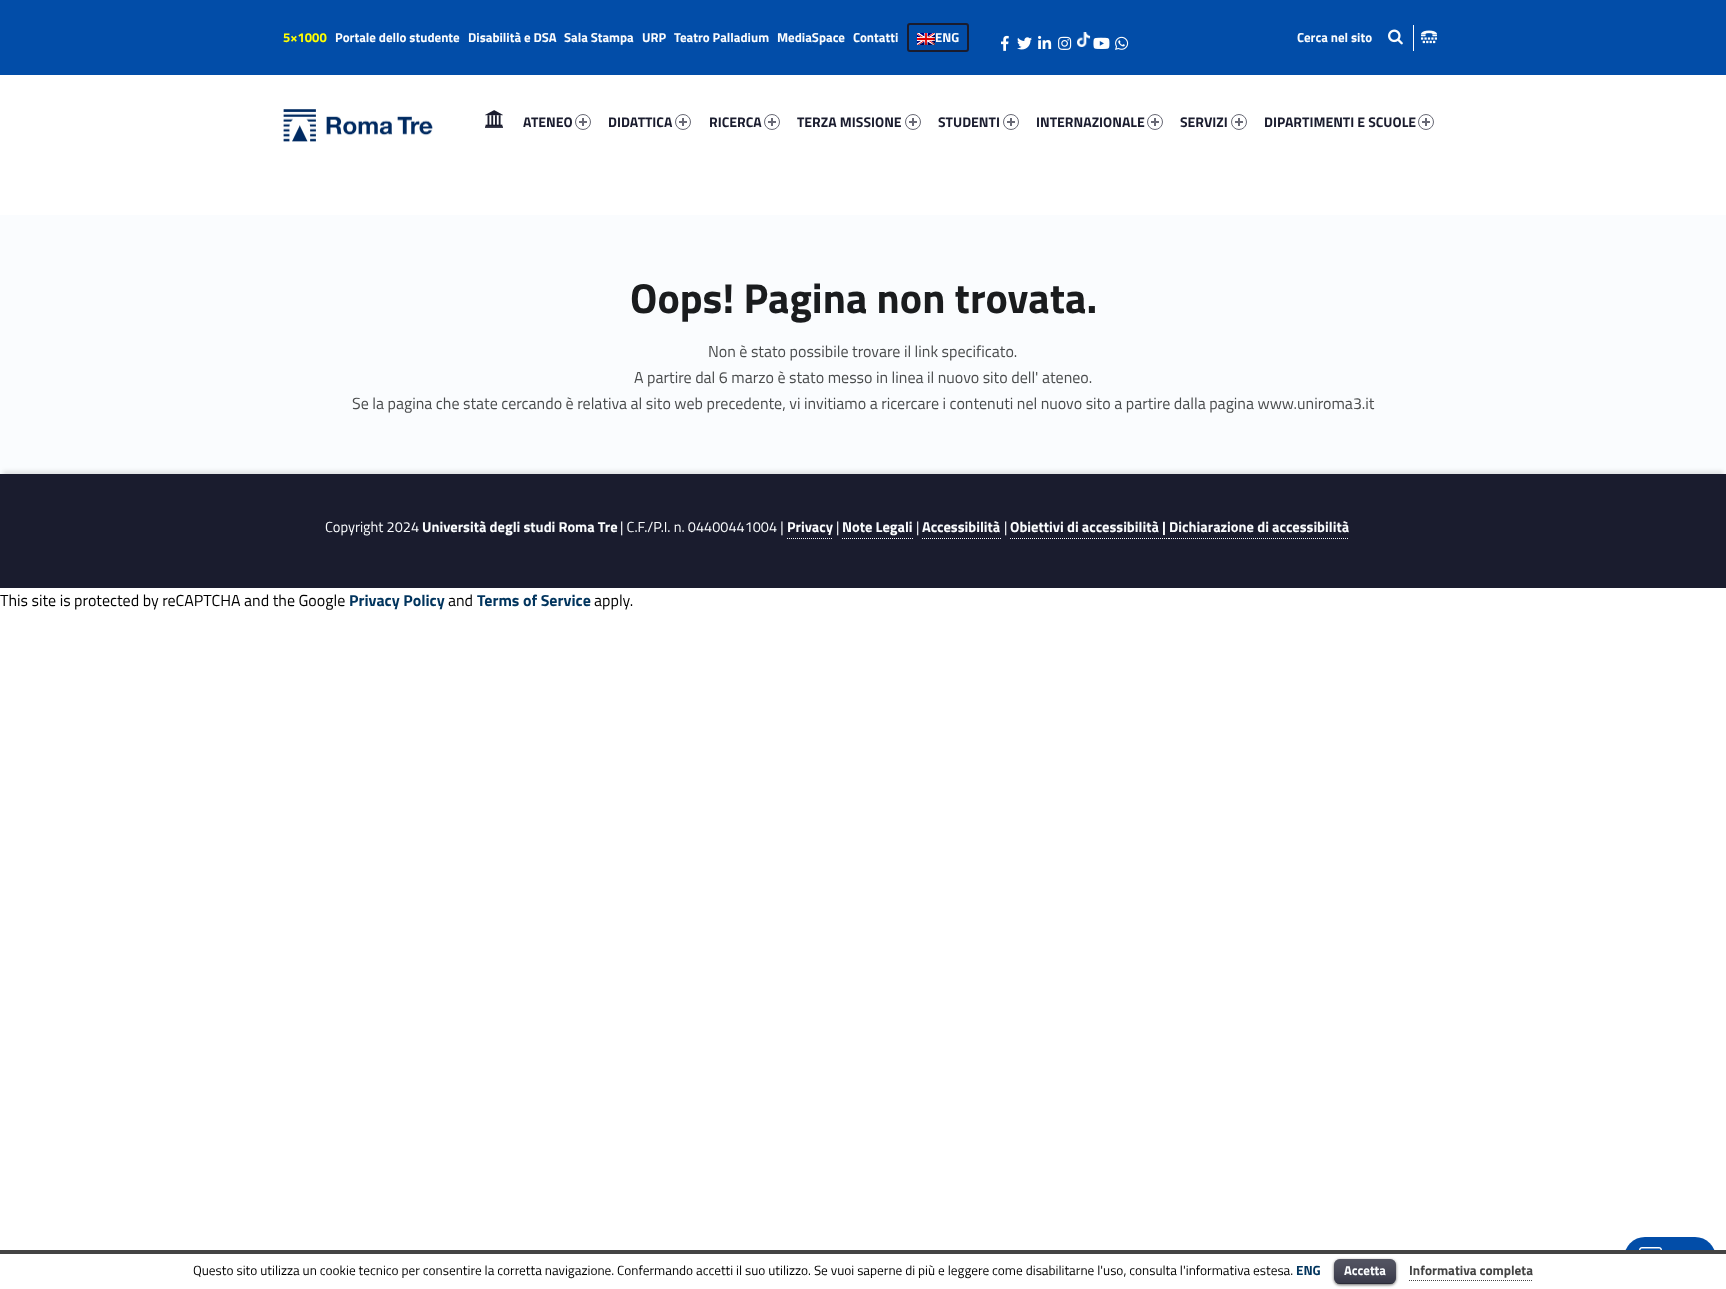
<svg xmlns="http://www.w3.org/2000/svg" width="1726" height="1289">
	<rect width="100%" height="100%" fill="#FFFFFF" />
	<rect x="0" y="0" width="1726" height="75" fill="#024DA8" />
	<text x="283" y="42" font-family="Titillium Web" font-size="13" font-weight="700" fill="#FFFF00">5×1000</text>
	<g font-family="Titillium Web" font-size="13" font-weight="700" fill="#FAFCFE">
		<text x="335" y="42">Portale dello studente</text>
		<text x="468" y="42">Disabilità e DSA</text>
		<text x="564" y="42">Sala Stampa</text>
		<text x="642" y="42">URP</text>
		<text x="674" y="42">Teatro Palladium</text>
		<text x="777" y="42">MediaSpace</text>
		<text x="853" y="42">Contatti</text>
	</g>
	<rect x="908" y="24" width="60" height="27" rx="2" fill="none" stroke="#1A1C2E" stroke-width="2" />
	<image x="917" y="33" width="18" height="12" href="assets/img1.png" />
	<text x="935" y="42" font-family="Titillium Web" font-size="13" font-weight="700" fill="#FAFCFE">ENG</text>
	<image x="1001" y="35" width="8" height="16" href="assets/img2.png" />
	<image x="1017" y="37" width="15" height="13" href="assets/img3.png" />
	<image x="1038" y="35" width="14" height="14" href="assets/img4.png" />
	<image x="1058" y="36" width="14" height="14" href="assets/img5.png" />
	<image x="1077" y="32" width="14" height="15" href="assets/img6.png" />
	<image x="1093" y="37" width="17" height="12" href="assets/img7.png" />
	<image x="1115" y="36" width="14" height="14" href="assets/img8.png" />
	<text x="1297" y="42" font-family="Titillium Web" font-size="13" font-weight="700" fill="#FAFCFE">Cerca nel sito</text>
	<image x="1388" y="29" width="15" height="16" href="assets/img9.png" />
	<rect x="1413" y="25" width="1" height="26" fill="#FFFFFF" />
	<image x="1421" y="30" width="16" height="14" href="assets/img10.png" />
	<image x="283" y="109" width="150" height="33" href="assets/img11.png" />
	<image x="485" y="110" width="18" height="18" href="assets/img12.png" />
	<text x="523" y="127" font-family="Titillium Web" font-size="14" font-weight="700" fill="#1A1C2E">ATENEO</text>
	<circle cx="583" cy="122" r="7.5" fill="none" stroke="#686975" />
	<rect x="579" y="121" width="8" height="2" fill="#686975" />
	<rect x="582" y="118" width="2" height="8" fill="#686975" />
	<text x="608" y="127" font-family="Titillium Web" font-size="14" font-weight="700" fill="#1A1C2E">DIDATTICA</text>
	<circle cx="683" cy="122" r="7.5" fill="none" stroke="#686975" />
	<rect x="679" y="121" width="8" height="2" fill="#686975" />
	<rect x="682" y="118" width="2" height="8" fill="#686975" />
	<text x="709" y="127" font-family="Titillium Web" font-size="14" font-weight="700" fill="#1A1C2E">RICERCA</text>
	<circle cx="772" cy="122" r="7.5" fill="none" stroke="#686975" />
	<rect x="768" y="121" width="8" height="2" fill="#686975" />
	<rect x="771" y="118" width="2" height="8" fill="#686975" />
	<text x="797" y="127" font-family="Titillium Web" font-size="14" font-weight="700" fill="#1A1C2E">TERZA MISSIONE</text>
	<circle cx="913" cy="122" r="7.5" fill="none" stroke="#686975" />
	<rect x="909" y="121" width="8" height="2" fill="#686975" />
	<rect x="912" y="118" width="2" height="8" fill="#686975" />
	<text x="938" y="127" font-family="Titillium Web" font-size="14" font-weight="700" fill="#1A1C2E">STUDENTI</text>
	<circle cx="1011" cy="122" r="7.5" fill="none" stroke="#686975" />
	<rect x="1007" y="121" width="8" height="2" fill="#686975" />
	<rect x="1010" y="118" width="2" height="8" fill="#686975" />
	<text x="1036" y="127" font-family="Titillium Web" font-size="14" font-weight="700" fill="#1A1C2E">INTERNAZIONALE</text>
	<circle cx="1155" cy="122" r="7.5" fill="none" stroke="#686975" />
	<rect x="1151" y="121" width="8" height="2" fill="#686975" />
	<rect x="1154" y="118" width="2" height="8" fill="#686975" />
	<text x="1180" y="127" font-family="Titillium Web" font-size="14" font-weight="700" fill="#1A1C2E">SERVIZI</text>
	<circle cx="1239" cy="122" r="7.5" fill="none" stroke="#686975" />
	<rect x="1235" y="121" width="8" height="2" fill="#686975" />
	<rect x="1238" y="118" width="2" height="8" fill="#686975" />
	<text x="1264" y="127" font-family="Titillium Web" font-size="14" font-weight="700" fill="#1A1C2E">DIPARTIMENTI E SCUOLE</text>
	<circle cx="1426" cy="122" r="7.5" fill="none" stroke="#686975" />
	<rect x="1422" y="121" width="8" height="2" fill="#686975" />
	<rect x="1425" y="118" width="2" height="8" fill="#686975" />
	<rect x="0" y="215" width="1726" height="259" fill="#FAFCFE" />
	<text x="630" y="313" font-family="Titillium Web" font-size="42" font-weight="700" fill="#1A1C1E">Oops! Pagina non trovata.</text>
	<g font-family="Titillium Web" font-size="16" fill="#4A4C4D">
		<text x="708" y="357">Non è stato possibile trovare il link specificato.</text>
		<text x="634" y="383">A partire dal 6 marzo è stato messo in linea il nuovo sito dell' ateneo.</text>
		<text x="352" y="409">Se la pagina che state cercando è relativa al sito web precedente, vi invitiamo a ricercare i contenuti nel nuovo sito a partire dalla pagina www.uniroma3.it</text>
	</g>
	<rect x="3" y="471" width="1720" height="108" fill="#000000" fill-opacity="0.1" filter="blur(2px)" />
	<rect x="0" y="474" width="1726" height="114" fill="#1A1C2E" />
	<text x="325" y="532" font-family="Titillium Web" font-size="14.5" fill="#FAFCFE">Copyright 2024</text>
	<text x="422" y="532" font-family="Titillium Web" font-size="14.5" font-weight="700" fill="#FAFCFE">Università degli studi Roma Tre</text>
	<text x="620" y="532" font-family="Titillium Web" font-size="14.5" fill="#FAFCFE">| C.F./P.I. n. 04400441004 |</text>
	<text x="787" y="532" font-family="Titillium Web" font-size="14.5" font-weight="700" fill="#FAFCFE">Privacy</text>
	<path d="M787 538.5H833" fill="none" stroke="#FAFCFE" stroke-dasharray="1 1" />
	<text x="836" y="532" font-family="Titillium Web" font-size="14.5" fill="#FAFCFE">|</text>
	<text x="842" y="532" font-family="Titillium Web" font-size="14.5" font-weight="700" fill="#FAFCFE">Note Legali</text>
	<path d="M842 538.5H913" fill="none" stroke="#FAFCFE" stroke-dasharray="1 1" />
	<text x="916" y="532" font-family="Titillium Web" font-size="14.5" fill="#FAFCFE">|</text>
	<text x="922" y="532" font-family="Titillium Web" font-size="14.5" font-weight="700" fill="#FAFCFE">Accessibilità</text>
	<path d="M922 538.5H1001" fill="none" stroke="#FAFCFE" stroke-dasharray="1 1" />
	<text x="1004" y="532" font-family="Titillium Web" font-size="14.5" fill="#FAFCFE">|</text>
	<text x="1010" y="532" font-family="Titillium Web" font-size="14.5" font-weight="700" fill="#FAFCFE">Obiettivi di accessibilità | Dichiarazione di accessibilità</text>
	<path d="M1010 538.5H1169" fill="none" stroke="#FAFCFE" stroke-dasharray="1 1" />
	<path d="M1169 538.5H1349" fill="none" stroke="#FAFCFE" stroke-dasharray="1 1" />
	<text x="0" y="606" font-family="Titillium Web" font-size="16" fill="#000000">This site is protected by reCAPTCHA and the Google</text>
	<text x="349" y="606" font-family="Titillium Web" font-size="16" font-weight="700" fill="#01345D">Privacy Policy</text>
	<text x="448" y="606" font-family="Titillium Web" font-size="16" fill="#000000">and</text>
	<text x="477" y="606" font-family="Titillium Web" font-size="16" font-weight="700" fill="#01345D">Terms of Service</text>
	<text x="594" y="606" font-family="Titillium Web" font-size="16" fill="#000000">apply.</text>
	<rect x="1624" y="1237" width="92" height="42" rx="21" fill="#024DA8" />
	<rect x="1624" y="1254" width="92" height="25" fill="#FFFFFF" />
	<rect x="0" y="1250" width="1726" height="4" fill="#444444" />
	<text x="193" y="1275" font-family="Titillium Web" font-size="13.33" fill="#000000">Questo sito utilizza un cookie tecnico per consentire la corretta navigazione. Confermando accetti il suo utilizzo. Se vuoi saperne di più e leggere come disabilitarne l'uso, consulta l'informativa estesa.</text>
	<text x="1296" y="1275" font-family="Titillium Web" font-size="13.33" font-weight="700" fill="#01345D">ENG</text>
	<rect x="1334" y="1260" width="62" height="25" rx="6" fill="#000000" fill-opacity="0.6" filter="blur(1.5px)" />
	<rect x="1334" y="1259" width="62" height="25" rx="6" fill="#1A1B2D" />
	<image x="1334" y="1259" width="62" height="25" href="assets/img13.png" />
	<rect x="1337" y="1283" width="56" height="1" fill="#000000" fill-opacity="0.25" />
	<text x="1344" y="1275" font-family="Titillium Web" font-size="13" font-weight="700" fill="#FAFCFE">Accetta</text>
	<text x="1409" y="1275" font-family="Titillium Web" font-size="13.33" font-weight="700" fill="#444444">Informativa completa</text>
	<path d="M1409 1280.5H1533" fill="none" stroke="#444444" stroke-dasharray="1 1" />
	<image x="1639" y="1247" width="23" height="3" href="assets/img14.png" />
</svg>
